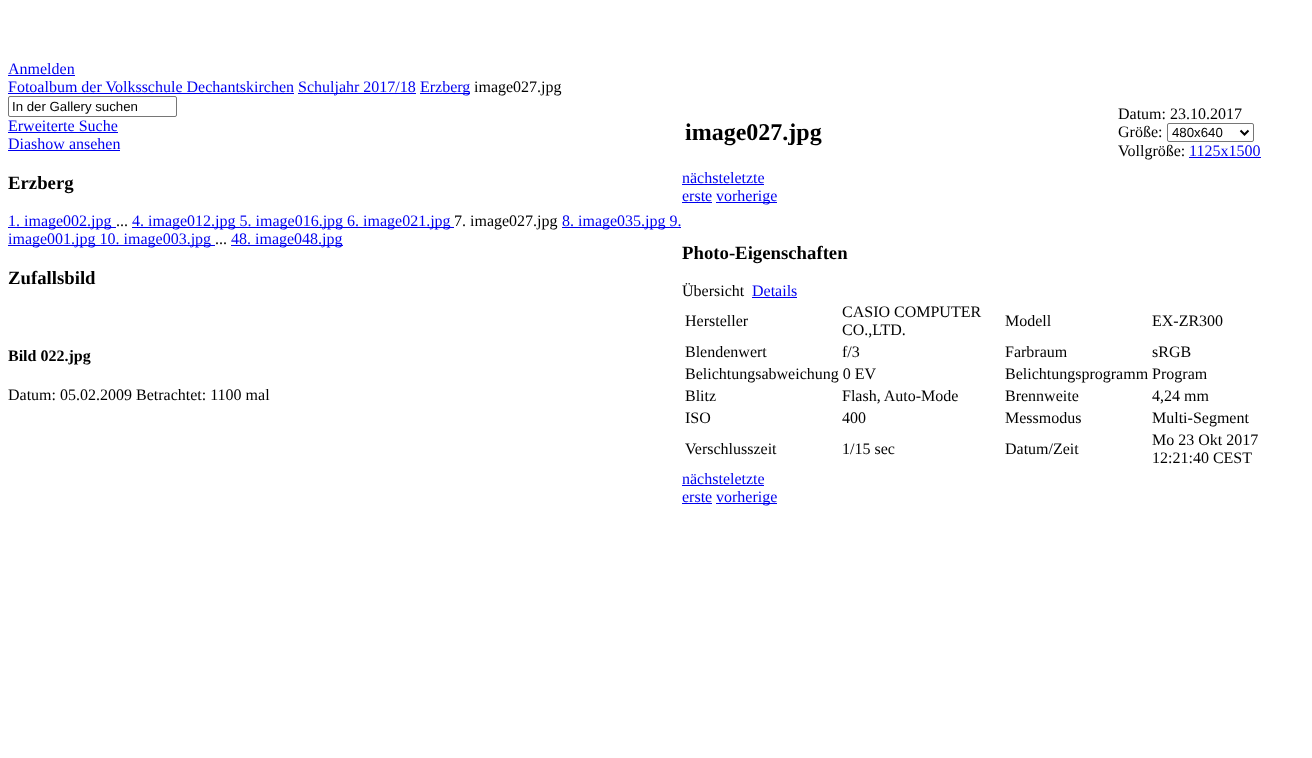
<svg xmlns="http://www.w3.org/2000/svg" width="1312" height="758">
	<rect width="100%" height="100%" fill="#FFFFFF" />
	<text x="8" y="74" font-family="Liberation Serif" font-size="16" fill="#0000EE">Anmelden</text>
	<rect x="8" y="75" width="67" height="1" fill="#0000EE" />
	<text x="8" y="92" font-family="Liberation Serif" font-size="16" fill="#0000EE">Fotoalbum der Volksschule Dechantskirchen</text>
	<rect x="8" y="93" width="286" height="1" fill="#0000EE" />
	<rect x="298" y="93" width="118" height="1" fill="#0000EE" />
	<text x="298" y="92" font-family="Liberation Serif" font-size="16" fill="#0000EE">Schuljahr 2017/18</text>
	<rect x="420" y="93" width="50" height="1" fill="#0000EE" />
	<text x="420" y="92" font-family="Liberation Serif" font-size="16" fill="#0000EE">Erzberg</text>
	<text x="474" y="92" font-family="Liberation Serif" font-size="16" fill="#000000">image027.jpg</text>
	<rect x="8.5" y="96.5" width="168" height="20" rx="1.5" fill="none" stroke="#767676" />
	<text x="12" y="111" font-family="Liberation Sans" font-size="13.25" fill="#000000">In der Gallery suchen</text>
	<text x="8" y="131" font-family="Liberation Serif" font-size="16" fill="#0000EE">Erweiterte Suche</text>
	<rect x="8" y="132" width="110" height="1" fill="#0000EE" />
	<text x="8" y="149" font-family="Liberation Serif" font-size="16" fill="#0000EE">Diashow ansehen</text>
	<rect x="8" y="150" width="112" height="1" fill="#0000EE" />
	<text x="8" y="189" font-family="Liberation Serif" font-size="18.75" font-weight="700" fill="#000000">Erzberg</text>
	<rect x="8" y="227" width="108" height="1" fill="#0000EE" />
	<text x="8" y="226" font-family="Liberation Serif" font-size="16" fill="#0000EE">1. image002.jpg</text>
	<text x="116" y="226" font-family="Liberation Serif" font-size="16" fill="#000000">...</text>
	<rect x="132" y="227" width="322" height="1" fill="#0000EE" />
	<text x="132" y="226" font-family="Liberation Serif" font-size="16" fill="#0000EE">4. image012.jpg 5. image016.jpg 6. image021.jpg</text>
	<text x="454" y="226" font-family="Liberation Serif" font-size="16" fill="#000000">7. image027.jpg</text>
	<rect x="562" y="227" width="119" height="1" fill="#0000EE" />
	<text x="562" y="226" font-family="Liberation Serif" font-size="16" fill="#0000EE">8. image035.jpg 9.</text>
	<rect x="8" y="245" width="207" height="1" fill="#0000EE" />
	<text x="8" y="244" font-family="Liberation Serif" font-size="16" fill="#0000EE">image001.jpg 10. image003.jpg</text>
	<text x="215" y="244" font-family="Liberation Serif" font-size="16" fill="#000000">...</text>
	<rect x="231" y="245" width="112" height="1" fill="#0000EE" />
	<text x="231" y="244" font-family="Liberation Serif" font-size="16" fill="#0000EE">48. image048.jpg</text>
	<text x="8" y="284" font-family="Liberation Serif" font-size="18.75" font-weight="700" fill="#000000">Zufallsbild</text>
	<text x="8" y="361" font-family="Liberation Serif" font-size="16" font-weight="700" fill="#000000">Bild 022.jpg</text>
	<text x="8" y="400" font-family="Liberation Serif" font-size="16" fill="#000000">Datum: 05.02.2009 Betrachtet: 1100 mal</text>
	<text x="685" y="140" font-family="Liberation Serif" font-size="24" font-weight="700" fill="#000000">image027.jpg</text>
	<g font-family="Liberation Serif" font-size="16" fill="#000000">
		<text x="1118" y="119">Datum: 23.10.2017</text>
		<text x="1118" y="137">Größe:</text>
	</g>
	<rect x="1167.5" y="123.5" width="86" height="18" rx="1.5" fill="none" stroke="#767676" />
	<path d="M1240.5 130.5L1244.5 134.5L1248.5 130.5" fill="none" stroke="#000000" stroke-width="2" />
	<text x="1172" y="137" font-family="Liberation Sans" font-size="13.25" fill="#000000">480x640</text>
	<text x="1118" y="156" font-family="Liberation Serif" font-size="16" fill="#000000">Vollgröße:</text>
	<text x="1189" y="156" font-family="Liberation Serif" font-size="16" fill="#0000EE">1125x1500</text>
	<rect x="1189" y="157" width="72" height="1" fill="#0000EE" />
	<text x="682" y="183" font-family="Liberation Serif" font-size="16" fill="#0000EE">nächsteletzte</text>
	<rect x="682" y="184" width="82" height="1" fill="#0000EE" />
	<text x="682" y="201" font-family="Liberation Serif" font-size="16" fill="#0000EE">erste</text>
	<rect x="682" y="202" width="30" height="1" fill="#0000EE" />
	<rect x="716" y="202" width="61" height="1" fill="#0000EE" />
	<text x="716" y="201" font-family="Liberation Serif" font-size="16" fill="#0000EE">vorherige</text>
	<text x="682" y="259" font-family="Liberation Serif" font-size="18.75" font-weight="700" fill="#000000">Photo-Eigenschaften</text>
	<text x="682" y="296" font-family="Liberation Serif" font-size="16" fill="#000000">Übersicht</text>
	<text x="752" y="296" font-family="Liberation Serif" font-size="16" fill="#0000EE">Details</text>
	<rect x="752" y="297" width="45" height="1" fill="#0000EE" />
	<g font-family="Liberation Serif" font-size="16" fill="#000000">
		<text x="685" y="326">Hersteller</text>
		<text x="842" y="317">CASIO COMPUTER</text>
		<text x="842" y="335">CO.,LTD.</text>
		<text x="1005" y="326">Modell</text>
		<text x="1152" y="326">EX-ZR300</text>
		<text x="685" y="357">Blendenwert</text>
		<text x="842" y="357">f/3</text>
		<text x="1005" y="357">Farbraum</text>
		<text x="1152" y="357">sRGB</text>
		<text x="685" y="379">Belichtungsabweichung 0 EV</text>
		<text x="1005" y="379">Belichtungsprogramm Program</text>
		<text x="685" y="401">Blitz</text>
		<text x="842" y="401">Flash, Auto-Mode</text>
		<text x="1005" y="401">Brennweite</text>
		<text x="1152" y="401">4,24 mm</text>
		<text x="685" y="423">ISO</text>
		<text x="842" y="423">400</text>
		<text x="1005" y="423">Messmodus</text>
		<text x="1152" y="423">Multi-Segment</text>
		<text x="685" y="454">Verschlusszeit</text>
		<text x="842" y="454">1/15 sec</text>
		<text x="1005" y="454">Datum/Zeit</text>
		<text x="1152" y="445">Mo 23 Okt 2017</text>
		<text x="1152" y="463">12:21:40 CEST</text>
	</g>
	<text x="682" y="484" font-family="Liberation Serif" font-size="16" fill="#0000EE">nächsteletzte</text>
	<rect x="682" y="485" width="82" height="1" fill="#0000EE" />
	<text x="682" y="502" font-family="Liberation Serif" font-size="16" fill="#0000EE">erste</text>
	<rect x="682" y="503" width="30" height="1" fill="#0000EE" />
	<rect x="716" y="503" width="61" height="1" fill="#0000EE" />
	<text x="716" y="502" font-family="Liberation Serif" font-size="16" fill="#0000EE">vorherige</text>
</svg>
